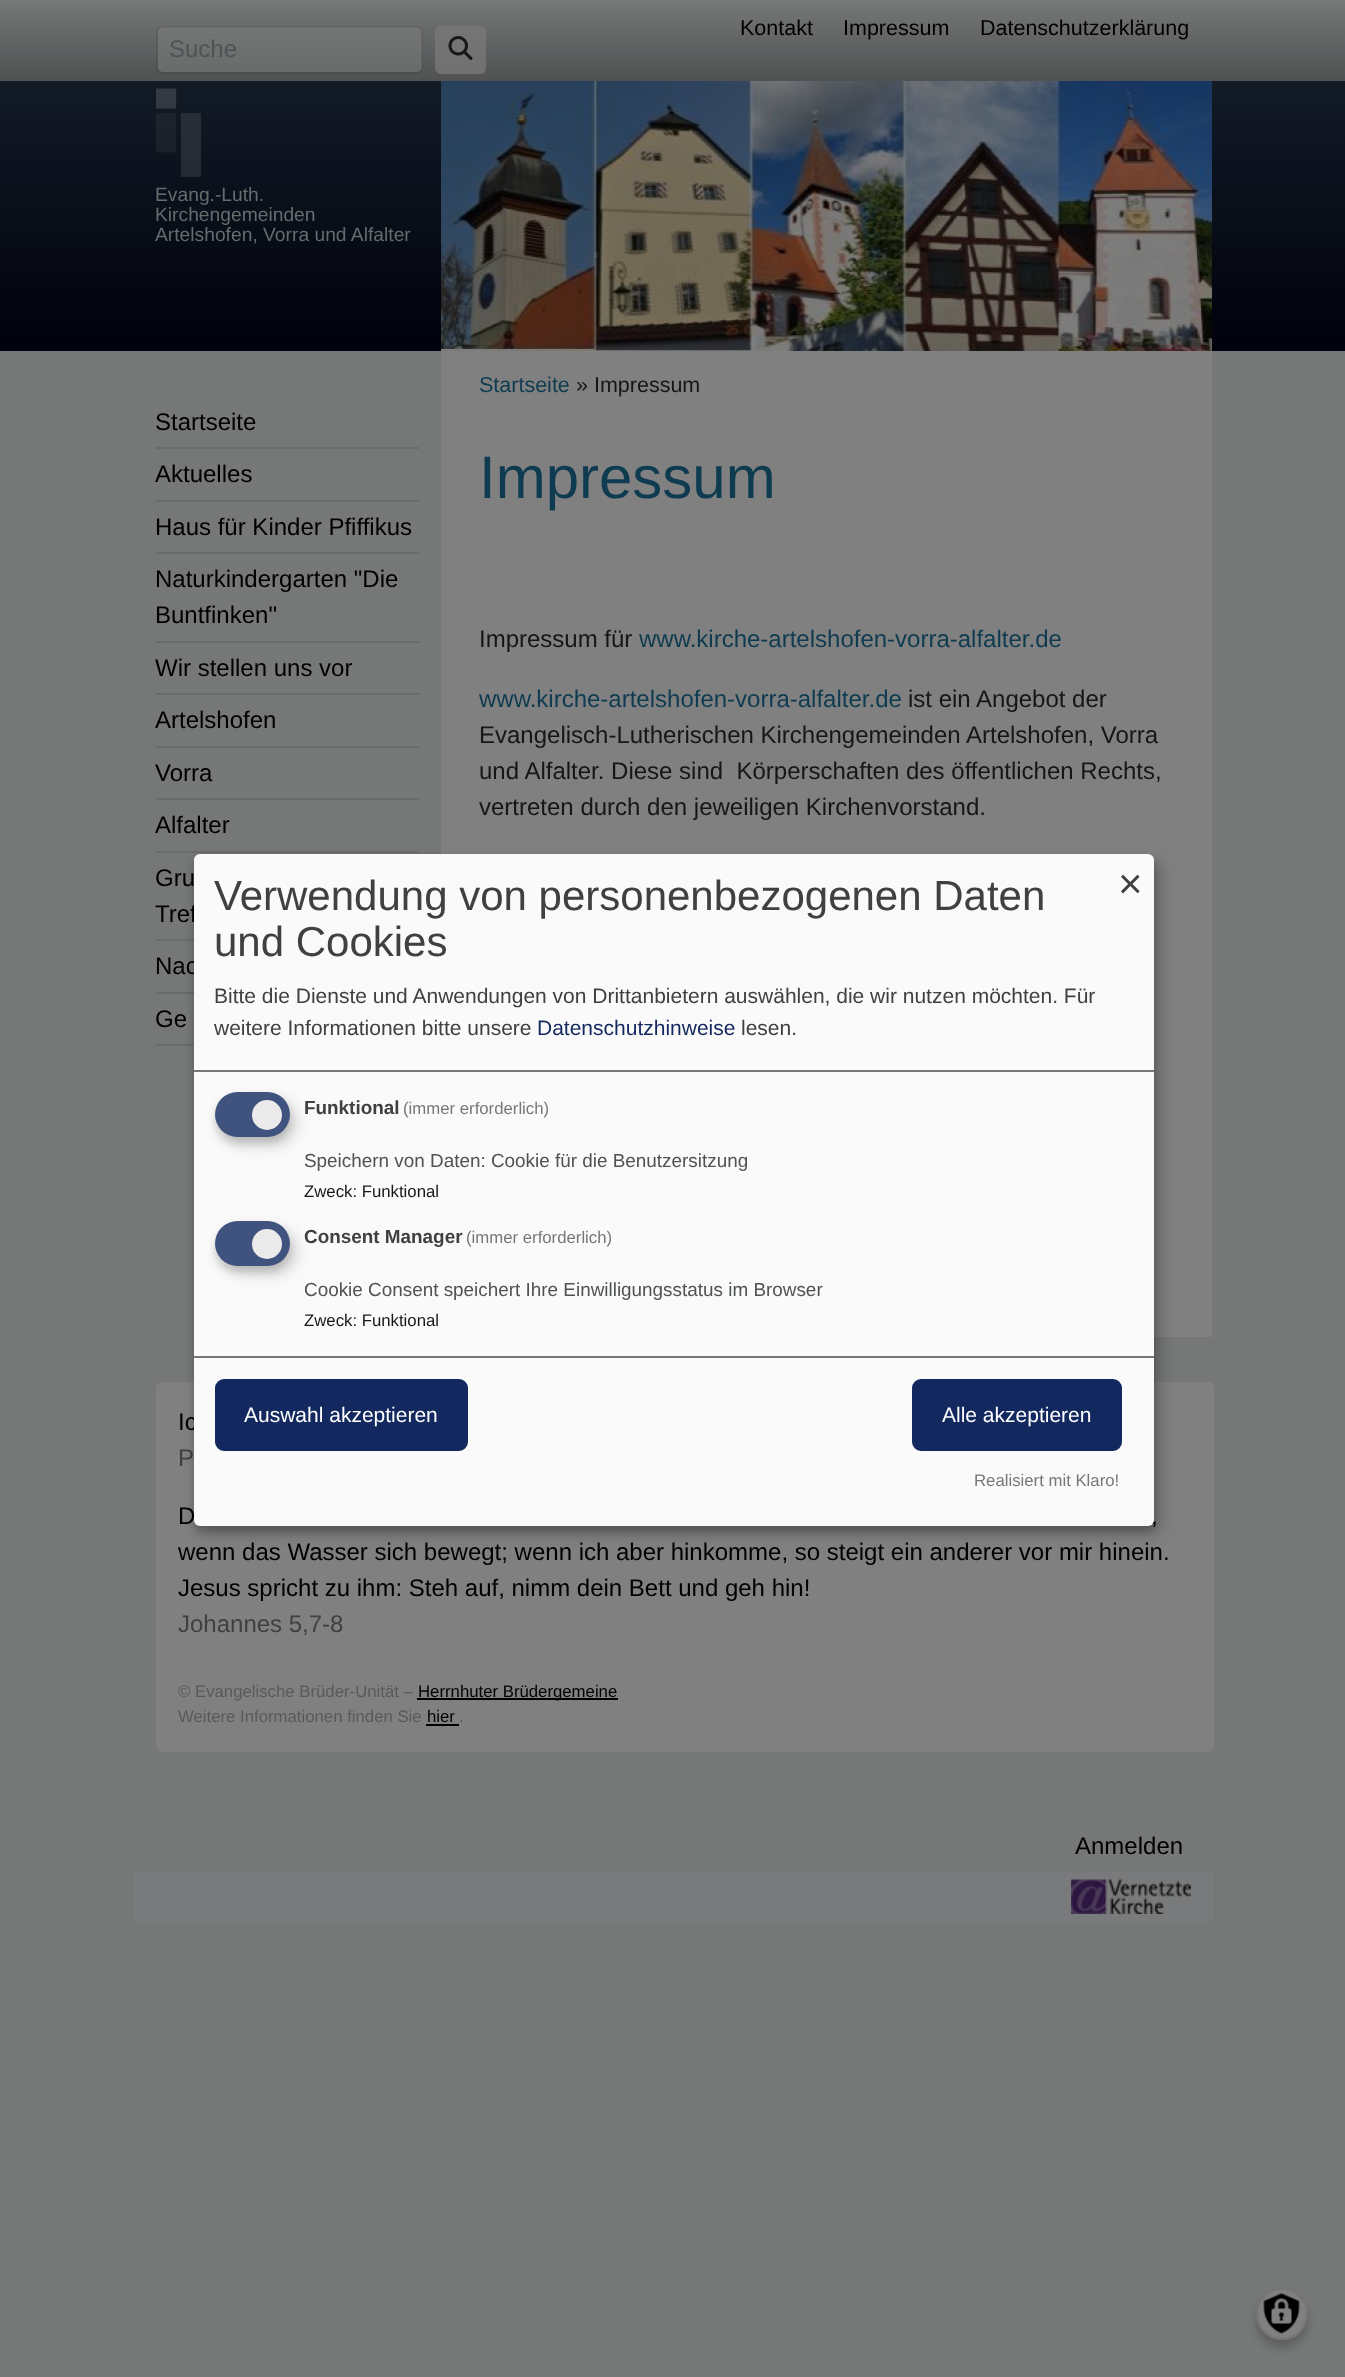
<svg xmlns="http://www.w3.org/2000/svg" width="1345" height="2377">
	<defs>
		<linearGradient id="g1" gradientUnits="userSpaceOnUse" x1="673" y1="0" x2="673" y2="81"><stop offset="0" stop-color="#767878" /><stop offset="1" stop-color="#4F5152" /></linearGradient>
		<linearGradient id="g2" gradientUnits="userSpaceOnUse" x1="673" y1="81" x2="673" y2="351"><stop offset="0" stop-color="#121B26" /><stop offset="1" stop-color="#00010C" /></linearGradient>
	</defs>
	<rect width="100%" height="100%" fill="#767878" />
	<rect x="0" y="5" width="1345" height="76" fill="url(#g1)" />
	<g font-family="Liberation Sans" font-size="21.5" fill="#000000">
		<text x="740" y="35">Kontakt</text>
		<text x="843" y="35">Impressum</text>
		<text x="980" y="35">Datenschutzerklärung</text>
	</g>
	<rect x="158" y="27" width="264" height="45" rx="5" fill="#808080" fill-opacity="0.5" />
	<rect x="157" y="27" width="265" height="46" rx="5" fill="none" stroke="#000000" stroke-opacity="0.07" stroke-width="2" />
	<text x="169" y="57" font-family="Liberation Sans" font-size="24" fill="#505355">Suche</text>
	<rect x="435" y="26" width="51" height="48" rx="6" fill="#787878" fill-opacity="0.8" />
	<image x="448" y="36" width="25" height="24" href="assets/img1.png" />
	<rect x="0" y="81" width="1345" height="270" fill="url(#g2)" />
	<image x="156" y="88" width="45" height="89" href="assets/img2.png" />
	<g font-family="Liberation Sans" font-size="19.25" fill="#656C6D">
		<text x="155" y="201">Evang.-Luth.</text>
		<text x="155" y="221">Kirchengemeinden</text>
		<text x="155" y="241">Artelshofen, Vorra und Alfalter</text>
	</g>
	<image x="441" y="81" width="771" height="270" href="assets/img3.png" />
	<rect x="156" y="447" width="263" height="2" fill="#6A6C6C" />
	<text x="155" y="430" font-family="Liberation Sans" font-size="24" fill="#000000">Startseite</text>
	<rect x="156" y="500" width="263" height="2" fill="#6A6C6C" />
	<text x="155" y="482" font-family="Liberation Sans" font-size="24" fill="#000000">Aktuelles</text>
	<rect x="156" y="552" width="263" height="2" fill="#6A6C6C" />
	<text x="155" y="535" font-family="Liberation Sans" font-size="24" fill="#000000">Haus für Kinder Pfiffikus</text>
	<rect x="156" y="641" width="263" height="2" fill="#6A6C6C" />
	<g font-family="Liberation Sans" font-size="24" fill="#000000">
		<text x="155" y="587">Naturkindergarten "Die</text>
		<text x="155" y="623">Buntfinken"</text>
	</g>
	<rect x="156" y="693" width="263" height="2" fill="#6A6C6C" />
	<text x="155" y="676" font-family="Liberation Sans" font-size="24" fill="#000000">Wir stellen uns vor</text>
	<rect x="156" y="746" width="263" height="2" fill="#6A6C6C" />
	<text x="155" y="728" font-family="Liberation Sans" font-size="24" fill="#000000">Artelshofen</text>
	<rect x="156" y="798" width="263" height="2" fill="#6A6C6C" />
	<text x="155" y="781" font-family="Liberation Sans" font-size="24" fill="#000000">Vorra</text>
	<rect x="156" y="851" width="263" height="2" fill="#6A6C6C" />
	<text x="155" y="833" font-family="Liberation Sans" font-size="24" fill="#000000">Alfalter</text>
	<rect x="156" y="939" width="38" height="2" fill="#6A6C6C" />
	<g font-family="Liberation Sans" font-size="24" fill="#000000">
		<text x="155" y="886">Gru</text>
		<text x="155" y="922">Tref</text>
	</g>
	<rect x="156" y="992" width="38" height="2" fill="#6A6C6C" />
	<text x="155" y="974" font-family="Liberation Sans" font-size="24" fill="#000000">Nac</text>
	<rect x="156" y="1044" width="38" height="2" fill="#6A6C6C" />
	<text x="155" y="1027" font-family="Liberation Sans" font-size="24" fill="#000000">Ge</text>
	<rect x="441" y="351" width="771" height="986" fill="#808080" />
	<text x="479" y="392" font-family="Liberation Sans" font-size="21.5" fill="#0E3B50">Startseite</text>
	<text x="576" y="392" font-family="Liberation Sans" font-size="21.5" fill="#151616">» Impressum</text>
	<text x="479" y="498" font-family="Liberation Sans" font-size="60" fill="#0E3B50">Impressum</text>
	<text x="479" y="647" font-family="Liberation Sans" font-size="24" fill="#151616">Impressum für</text>
	<g font-family="Liberation Sans" font-size="24" fill="#0E3B50">
		<text x="639" y="647">www.kirche-artelshofen-vorra-alfalter.de</text>
		<text x="479" y="707">www.kirche-artelshofen-vorra-alfalter.de</text>
	</g>
	<g font-family="Liberation Sans" font-size="24" fill="#151616">
		<text x="908" y="707">ist ein Angebot der</text>
		<text x="479" y="743">Evangelisch-Lutherischen Kirchengemeinden Artelshofen, Vorra</text>
		<text x="479" y="779" xml:space="preserve">und Alfalter. Diese sind  Körperschaften des öffentlichen Rechts,</text>
		<text x="479" y="815">vertreten durch den jeweiligen Kirchenvorstand.</text>
	</g>
	<rect x="156" y="1382" width="1058" height="370" rx="6" fill="#808080" />
	<text x="178" y="1430" font-family="Liberation Sans" font-size="24" fill="#000000">Ic</text>
	<text x="178" y="1466" font-family="Liberation Sans" font-size="24" fill="#404040">P</text>
	<g font-family="Liberation Sans" font-size="24" fill="#000000">
		<text x="178" y="1524">D</text>
		<text x="1151" y="1524">,</text>
		<text x="178" y="1560">wenn das Wasser sich bewegt; wenn ich aber hinkomme, so steigt ein anderer vor mir hinein.</text>
		<text x="178" y="1596">Jesus spricht zu ihm: Steh auf, nimm dein Bett und geh hin!</text>
	</g>
	<text x="178" y="1632" font-family="Liberation Sans" font-size="24" fill="#404040">Johannes 5,7-8</text>
	<text x="178" y="1697" font-family="Liberation Sans" font-size="16.75" fill="#595959">© Evangelische Brüder-Unität –</text>
	<rect x="417" y="1698" width="201" height="2" fill="#000000" />
	<text x="418" y="1697" font-family="Liberation Sans" font-size="16.75" fill="#000000">Herrnhuter Brüdergemeine</text>
	<text x="178" y="1722" font-family="Liberation Sans" font-size="16.75" fill="#595959">Weitere Informationen finden Sie</text>
	<text x="427" y="1722" font-family="Liberation Sans" font-size="16.75" fill="#000000">hier</text>
	<text x="459" y="1722" font-family="Liberation Sans" font-size="16.75" fill="#595959">.</text>
	<rect x="426" y="1724" width="33" height="2" fill="#000000" />
	<text x="1075" y="1854" font-family="Liberation Sans" font-size="24" fill="#000000">Anmelden</text>
	<rect x="134" y="1872" width="1080" height="50" fill="#797A7B" />
	<image x="1071" y="1879" width="120" height="35" href="assets/img4.png" />
	<rect x="201" y="861" width="960" height="672" rx="6" fill="#000000" fill-opacity="0.19" filter="blur(7.5px)" />
	<rect x="194" y="860" width="960" height="672" rx="6" fill="#000000" fill-opacity="0.2" filter="blur(4.5px)" />
	<rect x="194" y="854" width="960" height="672" rx="6" fill="#FAFAFA" />
	<rect x="194" y="1070" width="960" height="2" fill="#777777" />
	<g font-family="Liberation Sans" font-size="42" fill="#404040">
		<text x="214" y="910">Verwendung von personenbezogenen Daten</text>
		<text x="214" y="956">und Cookies</text>
	</g>
	<g font-family="Liberation Sans" font-size="21" fill="#404040">
		<text x="214" y="1003">Bitte die Dienste und Anwendungen von Drittanbietern auswählen, die wir nutzen möchten. Für</text>
		<text x="214" y="1035">weitere Informationen bitte unsere</text>
	</g>
	<text x="537" y="1035" font-family="Liberation Sans" font-size="21" fill="#12285F">Datenschutzhinweise</text>
	<text x="741" y="1035" font-family="Liberation Sans" font-size="21" fill="#404040">lesen.</text>
	<text x="1118" y="898" font-family="Liberation Sans" font-size="42" fill="#404040">×</text>
	<rect x="222" y="1100" width="75" height="45" rx="22.5" fill="#000000" fill-opacity="0.15" filter="blur(7.5px)" />
	<rect x="215" y="1098" width="75" height="45" rx="22.5" fill="#323232" fill-opacity="0.2" filter="blur(4.5px)" />
	<rect x="215" y="1092" width="75" height="45" rx="22.5" fill="#40527E" />
	<circle cx="267" cy="1115" r="15" fill="#EAEAEA" />
	<text x="304" y="1114" font-family="Liberation Sans" font-size="18.9" font-weight="700" fill="#404040">Funktional</text>
	<text x="403" y="1114" font-family="Liberation Sans" font-size="16.75" fill="#777777">(immer erforderlich)</text>
	<text x="304" y="1167" font-family="Liberation Sans" font-size="18.9" fill="#505355">Speichern von Daten: Cookie für die Benutzersitzung</text>
	<text x="304" y="1197" font-family="Liberation Sans" font-size="16.75" fill="#151616">Zweck: Funktional</text>
	<rect x="222" y="1229" width="75" height="45" rx="22.5" fill="#000000" fill-opacity="0.15" filter="blur(7.5px)" />
	<rect x="215" y="1227" width="75" height="45" rx="22.5" fill="#323232" fill-opacity="0.2" filter="blur(4.5px)" />
	<rect x="215" y="1221" width="75" height="45" rx="22.5" fill="#40527E" />
	<circle cx="267" cy="1244" r="15" fill="#EAEAEA" />
	<text x="304" y="1243" font-family="Liberation Sans" font-size="18.9" font-weight="700" fill="#404040">Consent Manager</text>
	<text x="466" y="1243" font-family="Liberation Sans" font-size="16.75" fill="#777777">(immer erforderlich)</text>
	<text x="304" y="1296" font-family="Liberation Sans" font-size="18.9" fill="#505355">Cookie Consent speichert Ihre Einwilligungsstatus im Browser</text>
	<text x="304" y="1326" font-family="Liberation Sans" font-size="16.75" fill="#151616">Zweck: Funktional</text>
	<rect x="194" y="1356" width="960" height="2" fill="#777777" />
	<rect x="217.5" y="1381.5" width="248" height="67" rx="6.5" fill="#12285F" stroke="#12285F" stroke-width="5" />
	<text x="244" y="1422" font-family="Liberation Sans" font-size="21" fill="#FFFFFF">Auswahl akzeptieren</text>
	<rect x="914.5" y="1381.5" width="205" height="67" rx="6.5" fill="#12285F" stroke="#12285F" stroke-width="5" />
	<text x="942" y="1422" font-family="Liberation Sans" font-size="21" fill="#FFFFFF">Alle akzeptieren</text>
	<text x="974" y="1486" font-family="Liberation Sans" font-size="16.75" fill="#777777">Realisiert mit Klaro!</text>
	<rect x="1256" y="2295" width="52" height="53" rx="26" fill="#000000" fill-opacity="0.2" filter="blur(4px)" />
	<circle cx="1282" cy="2314" r="26" fill="#808080" />
	<image x="1263" y="2293" width="37" height="41" href="assets/img5.png" />
	<circle cx="1282" cy="2314" r="25" fill="none" stroke="#757575" stroke-width="2" />
</svg>
